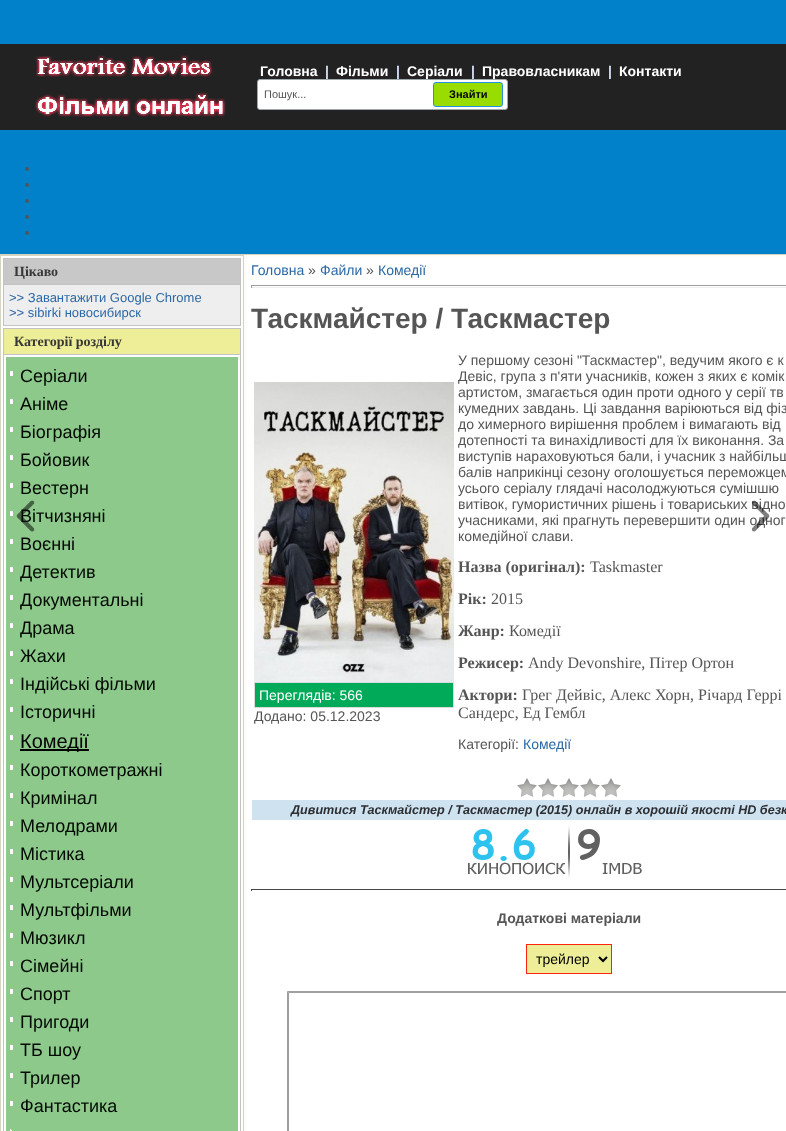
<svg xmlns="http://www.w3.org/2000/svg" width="786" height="1131">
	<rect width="100%" height="100%" fill="#0081C9" />
	<rect x="0" y="44" width="786" height="86" fill="#222222" />
	<image x="35" y="55" width="191" height="62" href="assets/img1.png" />
	<text x="260" y="76" font-family="Liberation Sans" font-size="14" font-weight="700" fill="#FFFFFF">Головна</text>
	<rect x="257.5" y="79.5" width="250" height="30" rx="2.5" fill="#FFFFFF" stroke="#A0A8AC" />
	<text x="325" y="76" font-family="Liberation Sans" font-size="14" font-weight="700" fill="#D6DFF7">|</text>
	<text x="336" y="76" font-family="Liberation Sans" font-size="14" font-weight="700" fill="#FFFFFF">Фільми</text>
	<text x="396" y="76" font-family="Liberation Sans" font-size="14" font-weight="700" fill="#D6DFF7">|</text>
	<text x="407" y="76" font-family="Liberation Sans" font-size="14" font-weight="700" fill="#FFFFFF">Серіали</text>
	<text x="471" y="76" font-family="Liberation Sans" font-size="14" font-weight="700" fill="#D6DFF7">|</text>
	<text x="482" y="76" font-family="Liberation Sans" font-size="14" font-weight="700" fill="#FFFFFF">Правовласникам</text>
	<text x="608" y="76" font-family="Liberation Sans" font-size="14" font-weight="700" fill="#D6DFF7">|</text>
	<text x="619" y="76" font-family="Liberation Sans" font-size="14" font-weight="700" fill="#FFFFFF">Контакти</text>
	<text x="264" y="98" font-family="Liberation Sans" font-size="11" fill="#555555">Пошук...</text>
	<rect x="433.5" y="82.5" width="69" height="24" rx="2.5" fill="#99DD00" stroke="#2290E3" />
	<text x="449" y="98" font-family="Liberation Sans" font-size="11" font-weight="700" fill="#000000">Знайти</text>
	<circle cx="27" cy="169" r="2" fill="#555555" />
	<circle cx="27" cy="185" r="2" fill="#555555" />
	<circle cx="27" cy="201" r="2" fill="#555555" />
	<circle cx="27" cy="217" r="2" fill="#555555" />
	<circle cx="27" cy="233" r="2" fill="#555555" />
	<rect x="0" y="254" width="786" height="1" fill="#D5D2BF" />
	<rect x="0.5" y="255.5" width="243" height="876" fill="#FFFFFF" stroke="#D5D2BF" />
	<rect x="3.5" y="258.5" width="237" height="67" fill="none" stroke="#C3C3C3" />
	<rect x="4" y="259" width="236" height="25" fill="#C8C8C8" />
	<rect x="4" y="284" width="236" height="1" fill="#C3C3C3" />
	<text x="14" y="276" font-family="Liberation Serif" font-size="14" font-weight="700" fill="#373736">Цікаво</text>
	<rect x="4" y="285" width="236" height="40" fill="#EEEEEE" />
	<g font-family="Liberation Sans" font-size="13" fill="#2C68A6">
		<text x="9" y="302">&gt;&gt; Завантажити Google Chrome</text>
		<text x="9" y="317">&gt;&gt; sibirki новосибирск</text>
	</g>
	<rect x="3.5" y="328.5" width="237" height="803" fill="none" stroke="#C3C3C3" />
	<rect x="4" y="329" width="236" height="25" fill="#EEEE99" />
	<rect x="4" y="354" width="236" height="1" fill="#C3C3C3" />
	<text x="14" y="346" font-family="Liberation Serif" font-size="14" font-weight="700" fill="#373736">Категорії розділу</text>
	<rect x="6" y="357" width="232" height="774" fill="#8EC98C" />
	<rect x="10" y="371" width="3" height="5" fill="#FFFFFF" />
	<text x="20" y="382" font-family="Liberation Sans" font-size="18" fill="#000900">Серіали</text>
	<rect x="10" y="399" width="3" height="5" fill="#FFFFFF" />
	<text x="20" y="410" font-family="Liberation Sans" font-size="18" fill="#000900">Аніме</text>
	<rect x="10" y="427" width="3" height="5" fill="#FFFFFF" />
	<text x="20" y="438" font-family="Liberation Sans" font-size="18" fill="#000900">Біографія</text>
	<rect x="10" y="455" width="3" height="5" fill="#FFFFFF" />
	<text x="20" y="466" font-family="Liberation Sans" font-size="18" fill="#000900">Бойовик</text>
	<rect x="10" y="483" width="3" height="5" fill="#FFFFFF" />
	<text x="20" y="494" font-family="Liberation Sans" font-size="18" fill="#000900">Вестерн</text>
	<rect x="10" y="511" width="3" height="5" fill="#FFFFFF" />
	<text x="20" y="522" font-family="Liberation Sans" font-size="18" fill="#000900">Вітчизняні</text>
	<rect x="10" y="539" width="3" height="5" fill="#FFFFFF" />
	<text x="20" y="550" font-family="Liberation Sans" font-size="18" fill="#000900">Воєнні</text>
	<rect x="10" y="567" width="3" height="5" fill="#FFFFFF" />
	<text x="20" y="578" font-family="Liberation Sans" font-size="18" fill="#000900">Детектив</text>
	<rect x="10" y="595" width="3" height="5" fill="#FFFFFF" />
	<text x="20" y="606" font-family="Liberation Sans" font-size="18" fill="#000900">Документальні</text>
	<rect x="10" y="623" width="3" height="5" fill="#FFFFFF" />
	<text x="20" y="634" font-family="Liberation Sans" font-size="18" fill="#000900">Драма</text>
	<rect x="10" y="651" width="3" height="5" fill="#FFFFFF" />
	<text x="20" y="662" font-family="Liberation Sans" font-size="18" fill="#000900">Жахи</text>
	<rect x="10" y="679" width="3" height="5" fill="#FFFFFF" />
	<text x="20" y="690" font-family="Liberation Sans" font-size="18" fill="#000900">Індійські фільми</text>
	<rect x="10" y="707" width="3" height="5" fill="#FFFFFF" />
	<text x="20" y="718" font-family="Liberation Sans" font-size="18" fill="#000900">Історичні</text>
	<rect x="10" y="735" width="3" height="5" fill="#FFFFFF" />
	<rect x="20" y="749" width="69" height="2" fill="#000000" />
	<text x="20" y="748" font-family="Liberation Sans" font-size="20" fill="#000000">Комедії</text>
	<rect x="10" y="765" width="3" height="5" fill="#FFFFFF" />
	<text x="20" y="776" font-family="Liberation Sans" font-size="18" fill="#000900">Короткометражні</text>
	<rect x="10" y="793" width="3" height="5" fill="#FFFFFF" />
	<text x="20" y="804" font-family="Liberation Sans" font-size="18" fill="#000900">Кримінал</text>
	<rect x="10" y="821" width="3" height="5" fill="#FFFFFF" />
	<text x="20" y="832" font-family="Liberation Sans" font-size="18" fill="#000900">Мелодрами</text>
	<rect x="10" y="849" width="3" height="5" fill="#FFFFFF" />
	<text x="20" y="860" font-family="Liberation Sans" font-size="18" fill="#000900">Містика</text>
	<rect x="10" y="877" width="3" height="5" fill="#FFFFFF" />
	<text x="20" y="888" font-family="Liberation Sans" font-size="18" fill="#000900">Мультсеріали</text>
	<rect x="10" y="905" width="3" height="5" fill="#FFFFFF" />
	<text x="20" y="916" font-family="Liberation Sans" font-size="18" fill="#000900">Мультфільми</text>
	<rect x="10" y="933" width="3" height="5" fill="#FFFFFF" />
	<text x="20" y="944" font-family="Liberation Sans" font-size="18" fill="#000900">Мюзикл</text>
	<rect x="10" y="961" width="3" height="5" fill="#FFFFFF" />
	<text x="20" y="972" font-family="Liberation Sans" font-size="18" fill="#000900">Сімейні</text>
	<rect x="10" y="989" width="3" height="5" fill="#FFFFFF" />
	<text x="20" y="1000" font-family="Liberation Sans" font-size="18" fill="#000900">Спорт</text>
	<rect x="10" y="1017" width="3" height="5" fill="#FFFFFF" />
	<text x="20" y="1028" font-family="Liberation Sans" font-size="18" fill="#000900">Пригоди</text>
	<rect x="10" y="1045" width="3" height="5" fill="#FFFFFF" />
	<text x="20" y="1056" font-family="Liberation Sans" font-size="18" fill="#000900">ТБ шоу</text>
	<rect x="10" y="1073" width="3" height="5" fill="#FFFFFF" />
	<text x="20" y="1084" font-family="Liberation Sans" font-size="18" fill="#000900">Трилер</text>
	<rect x="10" y="1101" width="3" height="5" fill="#FFFFFF" />
	<text x="20" y="1112" font-family="Liberation Sans" font-size="18" fill="#000900">Фантастика</text>
	<image x="10" y="1129" width="2" height="2" href="assets/img2.png" />
	<rect x="244.5" y="255.5" width="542" height="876" fill="none" stroke="#FDFDF5" />
	<rect x="245.5" y="256.5" width="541" height="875" fill="#FFFFFF" stroke="#FDFDF5" />
	<text x="251" y="275" font-family="Liberation Sans" font-size="14" fill="#2C68A6">Головна</text>
	<text x="308" y="275" font-family="Liberation Sans" font-size="14" fill="#555555">»</text>
	<text x="320" y="275" font-family="Liberation Sans" font-size="14" fill="#2C68A6">Файли</text>
	<text x="366" y="275" font-family="Liberation Sans" font-size="14" fill="#555555">»</text>
	<text x="378" y="275" font-family="Liberation Sans" font-size="14" fill="#2C68A6">Комедії</text>
	<rect x="251" y="285" width="535" height="1" fill="#9F9F9F" />
	<rect x="251" y="287" width="535" height="1" fill="#EEEEEE" />
	<rect x="251" y="285" width="1" height="3" fill="#9F9F9F" />
	<text x="251" y="328" font-family="Liberation Sans" font-size="28" font-weight="700" fill="#555555">Таскмайстер / Таскмастер</text>
	<image x="254" y="382" width="200" height="300" href="assets/img3.png" />
	<rect x="254.5" y="682.5" width="199" height="25" fill="#00AA59" stroke="#DBDBDB" />
	<text x="259" y="700" font-family="Liberation Sans" font-size="14" fill="#FFFFFF">Переглядів: 566</text>
	<g font-family="Liberation Sans" font-size="14" fill="#555555">
		<text x="254" y="721">Додано: 05.12.2023</text>
		<text x="458" y="365">У першому сезоні "Таскмастер", ведучим якого є к</text>
		<text x="458" y="381">Девіс, група з п'яти учасників, кожен з яких є комік</text>
		<text x="458" y="397">артистом, змагається один проти одного у серії тв</text>
		<text x="458" y="413">кумедних завдань. Ці завдання варіюються від фіз</text>
		<text x="458" y="429">до химерного вирішення проблем і вимагають від</text>
		<text x="458" y="445">дотепності та винахідливості для їх виконання. За</text>
		<text x="458" y="461">виступів нараховуються бали, і учасник з найбільш</text>
		<text x="458" y="477">балів наприкінці сезону оголошується переможцем</text>
		<text x="458" y="493">усього серіалу глядачі насолоджуються сумішшю</text>
		<text x="458" y="509">витівок, гумористичних рішень і товариських відно</text>
		<text x="458" y="525">учасниками, які прагнуть перевершити один одног</text>
		<text x="458" y="541">комедійної слави.</text>
	</g>
	<text x="458" y="572" font-family="Liberation Serif" font-size="16" font-weight="700" fill="#555555">Назва (оригінал):</text>
	<text x="590" y="572" font-family="Liberation Serif" font-size="16" fill="#555555">Taskmaster</text>
	<text x="458" y="604" font-family="Liberation Serif" font-size="16" font-weight="700" fill="#555555">Рік:</text>
	<text x="491" y="604" font-family="Liberation Serif" font-size="16" fill="#555555">2015</text>
	<text x="458" y="636" font-family="Liberation Serif" font-size="16" font-weight="700" fill="#555555">Жанр:</text>
	<text x="509" y="636" font-family="Liberation Serif" font-size="16" fill="#555555">Комедії</text>
	<text x="458" y="668" font-family="Liberation Serif" font-size="16" font-weight="700" fill="#555555">Режисер:</text>
	<text x="528" y="668" font-family="Liberation Serif" font-size="16" fill="#555555">Andy Devonshire, Пітер Ортон</text>
	<text x="458" y="700" font-family="Liberation Serif" font-size="16" font-weight="700" fill="#555555">Актори:</text>
	<g font-family="Liberation Serif" font-size="16" fill="#555555">
		<text x="522" y="700">Грег Дейвіс, Алекс Хорн, Річард Геррі</text>
		<text x="458" y="718">Сандерс, Ед Гембл</text>
	</g>
	<text x="458" y="749" font-family="Liberation Sans" font-size="14" fill="#555555">Категорії:</text>
	<text x="523" y="749" font-family="Liberation Sans" font-size="14" fill="#2C68A6">Комедії</text>
	<image x="517" y="778" width="104" height="19" href="assets/img4.png" />
	<rect x="252" y="800" width="534" height="20" fill="#CEE2F0" />
	<text x="291" y="814" font-family="Liberation Sans" font-size="12.6" font-weight="700" font-style="italic" fill="#2C2E32">Дивитися Таскмайстер / Таскмастер (2015) онлайн в хорошій якості HD безк</text>
	<image x="468" y="826" width="174" height="52" href="assets/img5.png" />
	<rect x="251" y="889" width="535" height="1" fill="#464646" />
	<rect x="251" y="889" width="1" height="2" fill="#464646" />
	<text x="497" y="923" font-family="Liberation Sans" font-size="14" font-weight="700" fill="#555555">Додаткові матеріали</text>
	<rect x="526.5" y="944.5" width="85" height="29" fill="#EEEE99" stroke="#FB240C" />
	<path d="M599 957L603 961L607 957" fill="none" stroke="#000000" stroke-width="2" />
	<text x="536" y="964" font-family="Liberation Sans" font-size="14" fill="#000000">трейлер</text>
	<path d="M287 991H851L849 993H289Z" fill="#9F9F9F" />
	<path d="M287 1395V991L289 993V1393Z" fill="#9F9F9F" />
	<image x="16" y="500" width="19" height="32" href="assets/img6.png" />
	<image x="751" y="500" width="19" height="32" href="assets/img7.png" />
</svg>
